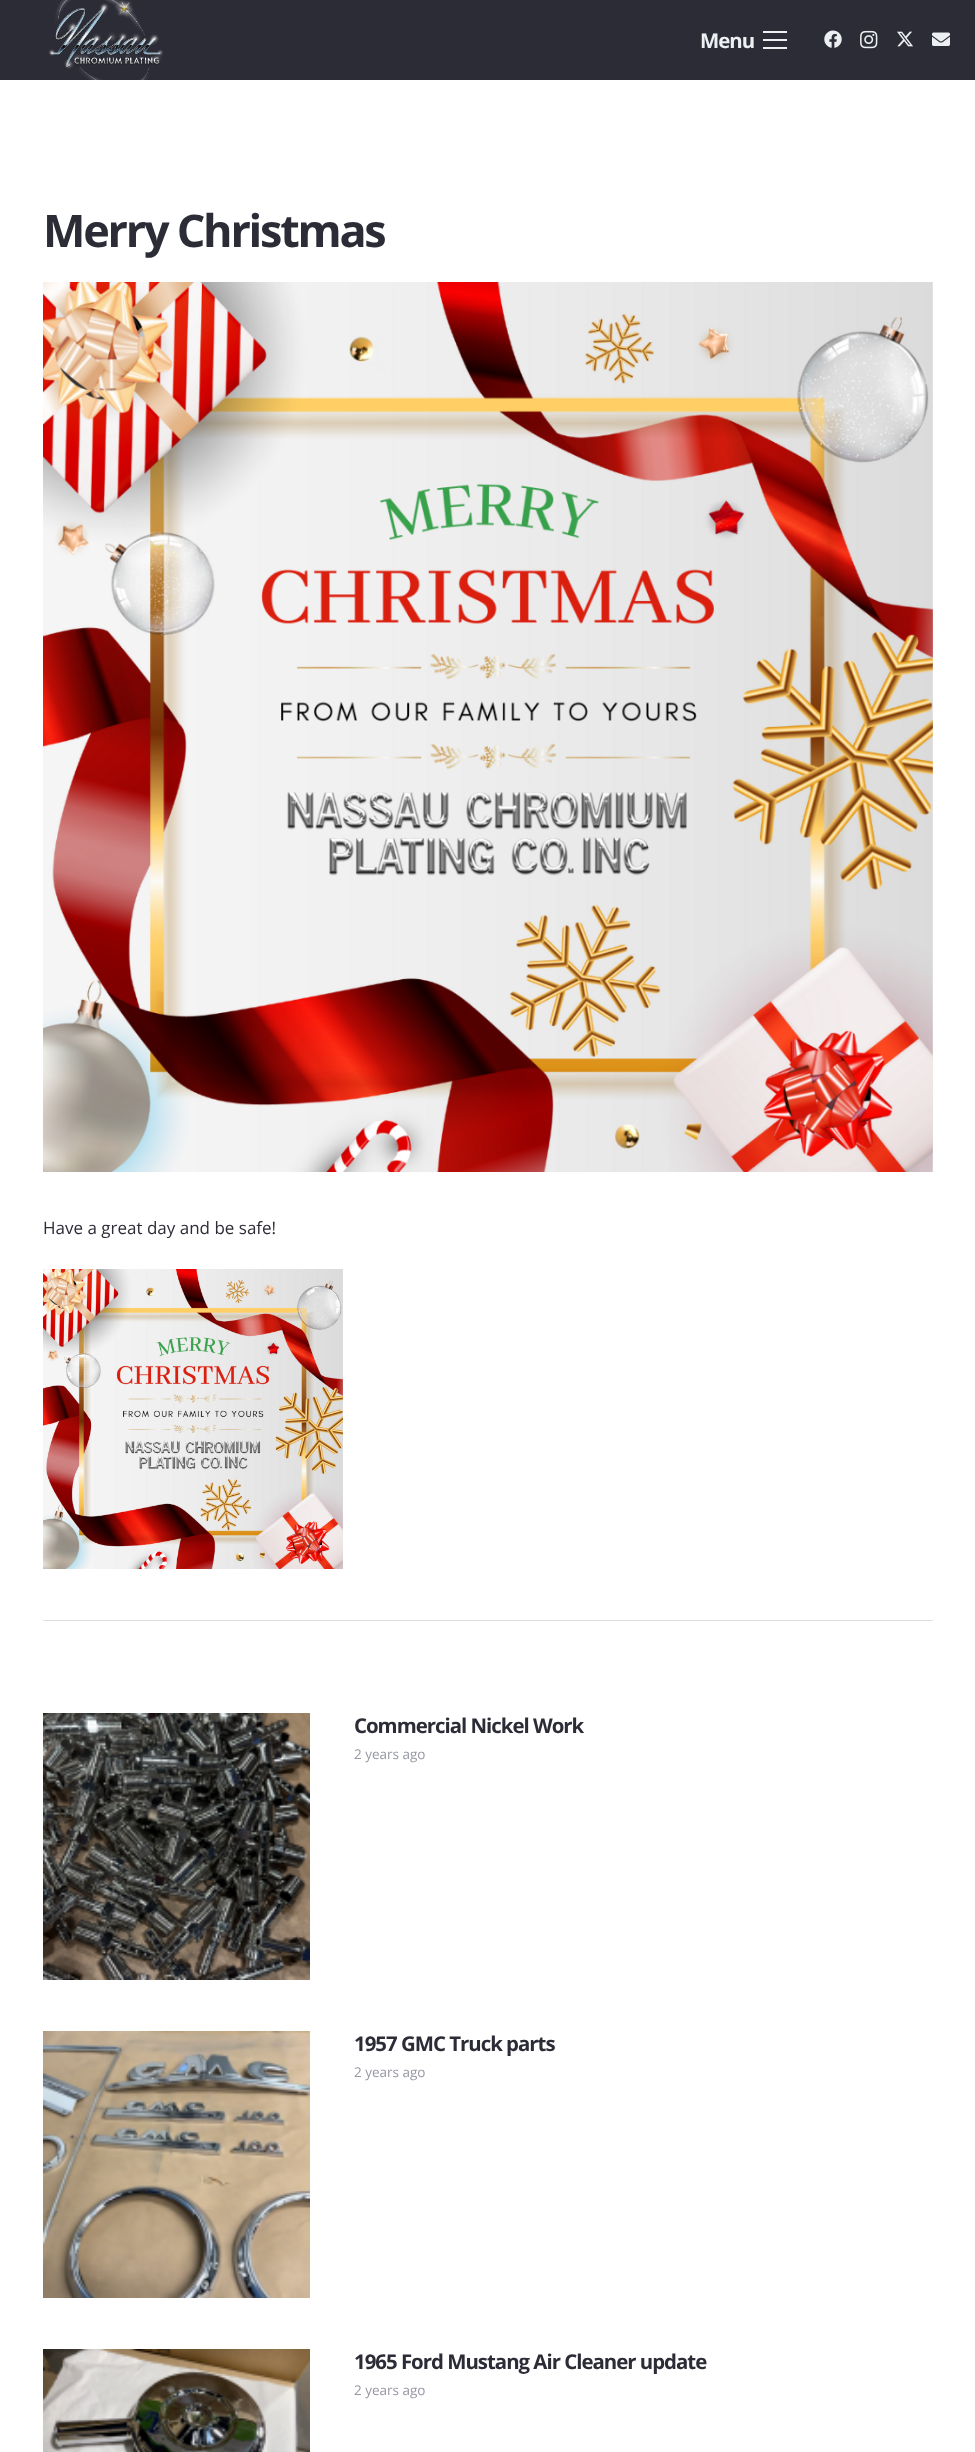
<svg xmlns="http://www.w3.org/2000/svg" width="975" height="2452">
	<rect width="100%" height="100%" fill="#FFFFFF" />
	<rect x="0" y="0" width="975" height="80" fill="#2B2C36" />
	<image x="48" y="0" width="115" height="80" href="assets/img1.png" />
	<text x="700" y="48" font-family="Open Sans" font-size="20.4" font-weight="700" letter-spacing="-1" fill="#EDF0F2">Menu</text>
	<rect x="763" y="39" width="24" height="2" fill="#EDF0F2" />
	<rect x="763" y="31" width="24" height="2" fill="#EDF0F2" />
	<rect x="763" y="47" width="24" height="2" fill="#EDF0F2" />
	<image x="824" y="30" width="18" height="18" href="assets/img2.png" />
	<image x="860" y="30" width="18" height="19" href="assets/img3.png" />
	<image x="897" y="31" width="16" height="16" href="assets/img4.png" />
	<image x="932" y="32" width="18" height="14" href="assets/img5.png" />
	<text x="43" y="247" font-family="Open Sans" font-size="45" font-weight="700" letter-spacing="-2.25" fill="#2B2C36">Merry Christmas</text>
	<image x="43" y="282" width="890" height="890" href="assets/img6.png" />
	<text x="43" y="1234" font-family="Open Sans" font-size="17" fill="#2B2C36">Have a great day and be safe!</text>
	<image x="43" y="1269" width="300" height="300" href="assets/img7.png" />
	<rect x="43" y="1620" width="890" height="1" fill="#DCE0E3" />
	<image x="43" y="1713" width="267" height="267" href="assets/img8.png" />
	<text x="354" y="1733" font-family="Open Sans" font-size="20.4" font-weight="700" letter-spacing="-1" fill="#2B2C36">Commercial Nickel Work</text>
	<text x="354" y="1759" font-family="Open Sans" font-size="13.5" fill="#9698A3">2 years ago</text>
	<image x="43" y="2031" width="267" height="267" href="assets/img9.png" />
	<text x="354" y="2051" font-family="Open Sans" font-size="20.4" font-weight="700" letter-spacing="-1" fill="#2B2C36">1957 GMC Truck parts</text>
	<text x="354" y="2077" font-family="Open Sans" font-size="13.5" fill="#9698A3">2 years ago</text>
	<image x="43" y="2349" width="267" height="103" href="assets/img10.png" />
	<text x="354" y="2369" font-family="Open Sans" font-size="20.4" font-weight="700" letter-spacing="-1" fill="#2B2C36">1965 Ford Mustang Air Cleaner update</text>
	<text x="354" y="2395" font-family="Open Sans" font-size="13.5" fill="#9698A3">2 years ago</text>
</svg>
